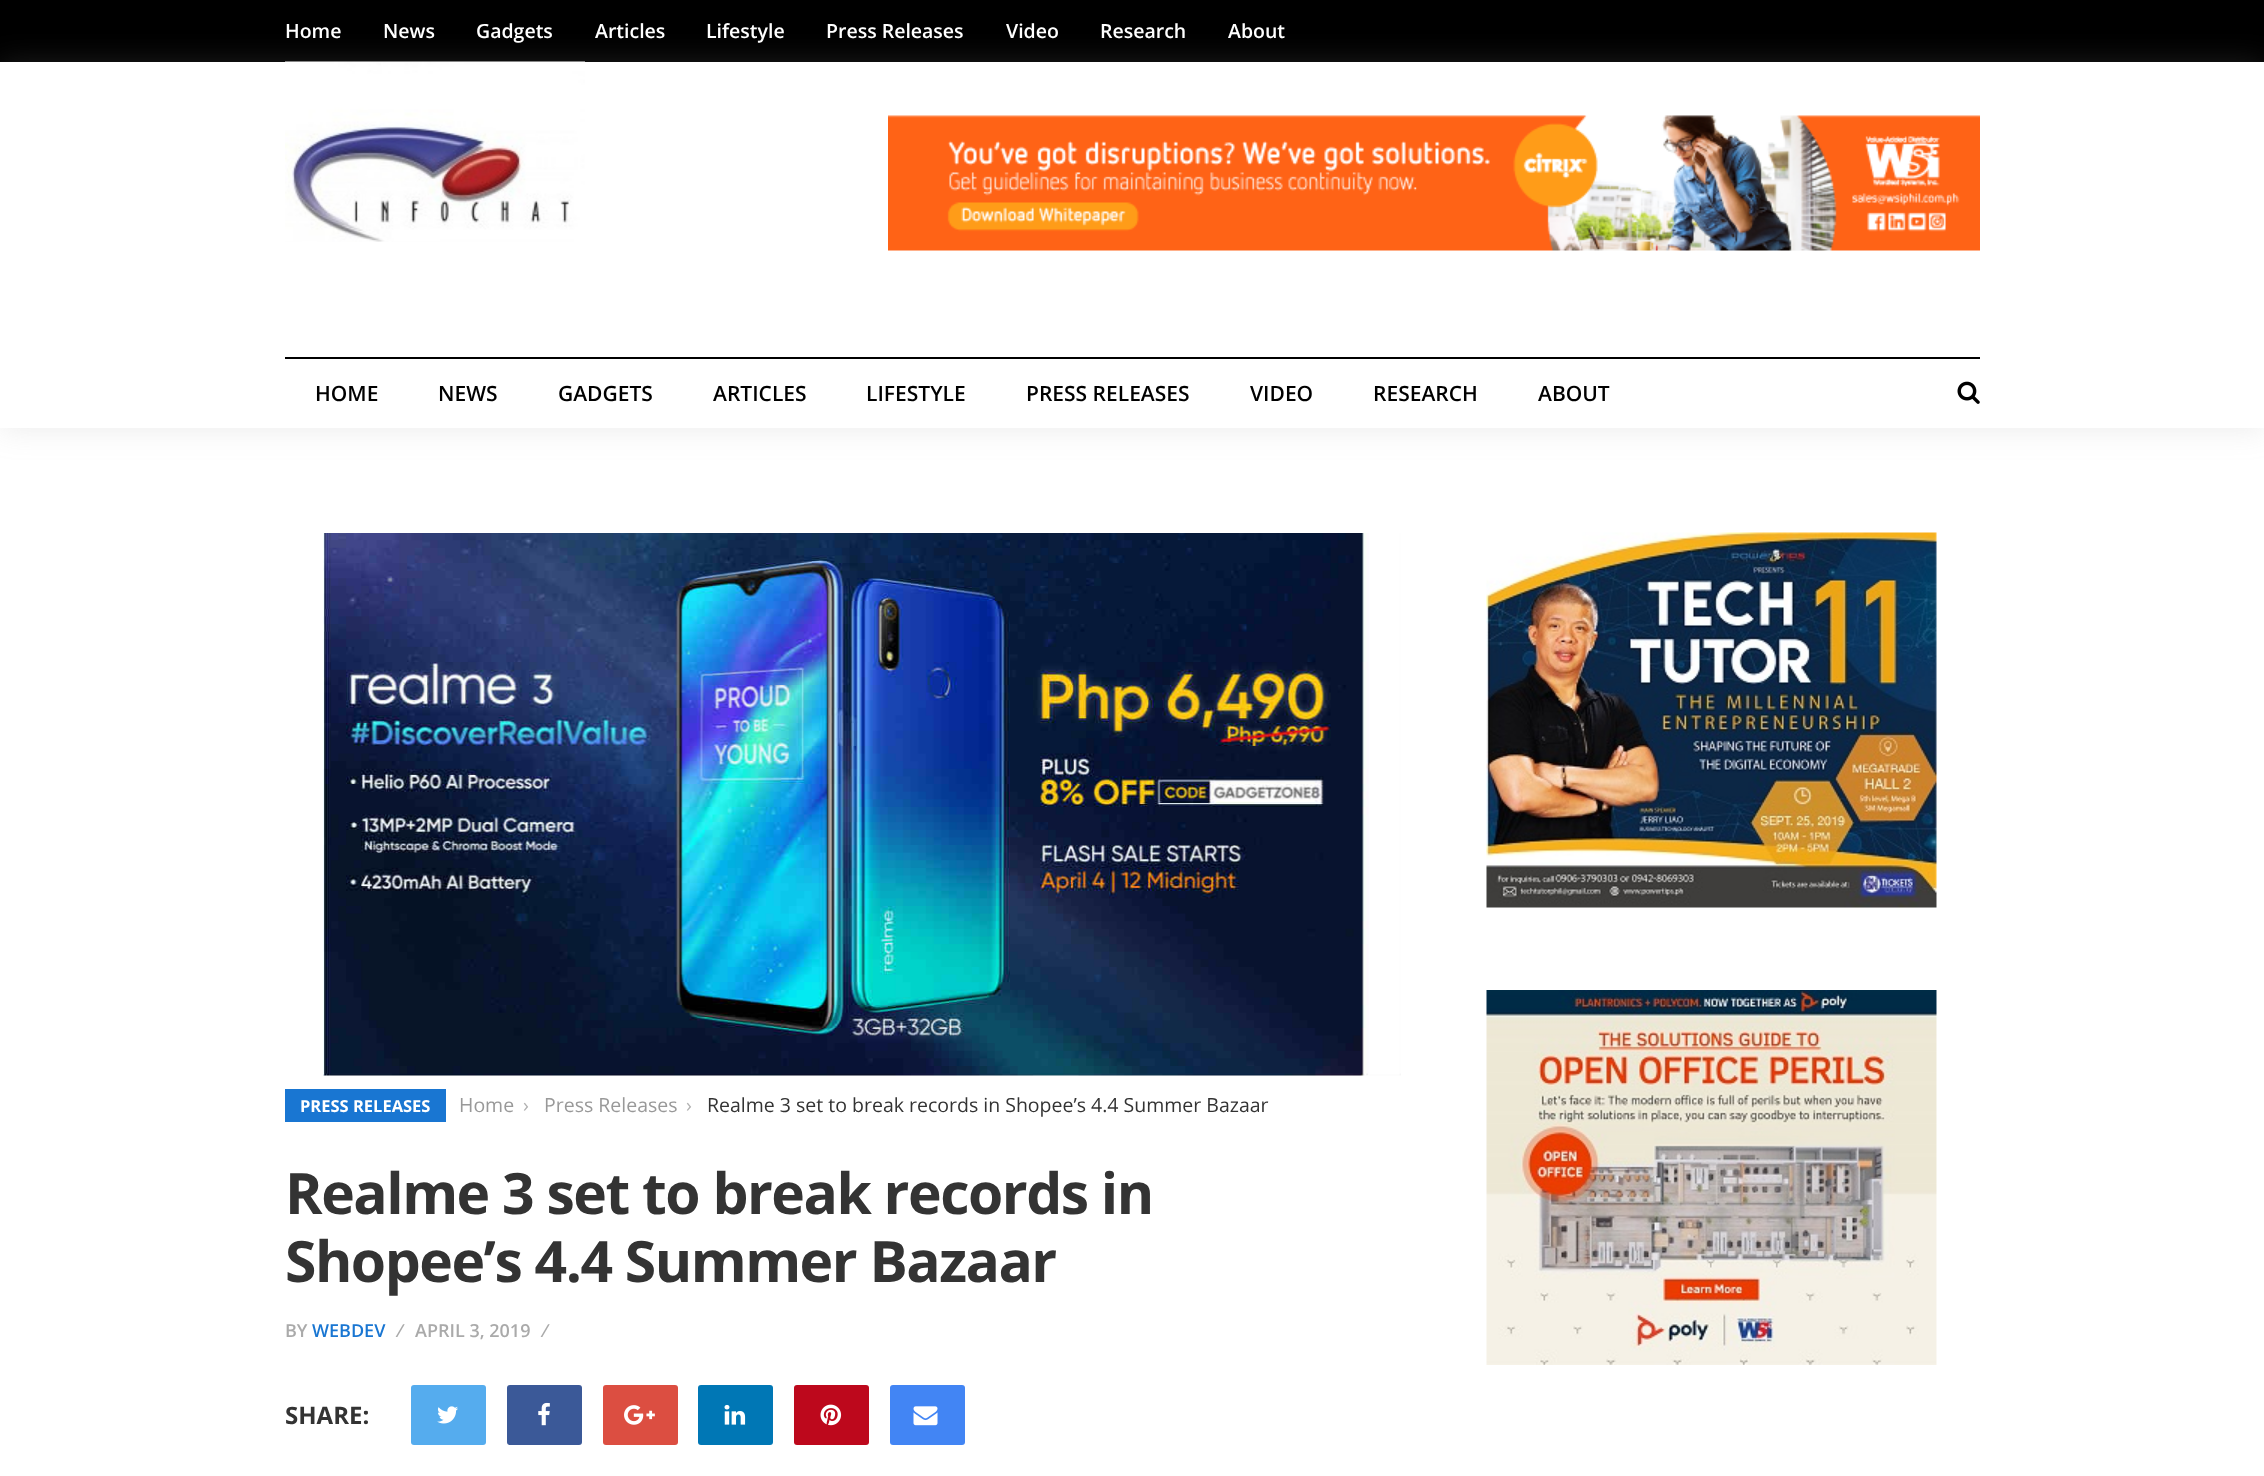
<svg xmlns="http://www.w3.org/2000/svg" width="2264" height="1476">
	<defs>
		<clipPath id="clip1"><path d="M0 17H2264V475H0ZM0 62H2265V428H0Z" clip-rule="evenodd" /></clipPath>
	</defs>
	<rect width="100%" height="100%" fill="#FFFFFF" />
	<rect x="0" y="0" width="2264" height="62" fill="#000000" />
	<g clip-path="url(#clip1)">
		<rect x="0" y="63" width="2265" height="366" fill="#999999" fill-opacity="0.2" filter="blur(15px)" />
	</g>
	<g font-family="Open Sans" font-size="19.5" font-weight="600" fill="#FFFFFF">
		<text x="285" y="38">Home</text>
		<text x="383" y="38">News</text>
		<text x="476" y="38">Gadgets</text>
		<text x="595" y="38">Articles</text>
		<text x="706" y="38">Lifestyle</text>
		<text x="826" y="38">Press Releases</text>
		<text x="1006" y="38">Video</text>
		<text x="1100" y="38">Research</text>
		<text x="1228" y="38">About</text>
	</g>
	<image x="285" y="61" width="300" height="181" href="assets/img1.png" />
	<image x="888" y="115" width="1092" height="136" href="assets/img2.png" />
	<rect x="285" y="357" width="1695" height="2" fill="#000000" />
	<g font-family="Open Sans" font-size="21" font-weight="600" fill="#000000">
		<text x="315" y="401">HOME</text>
		<text x="438" y="401">NEWS</text>
		<text x="558" y="401">GADGETS</text>
		<text x="713" y="401">ARTICLES</text>
		<text x="866" y="401">LIFESTYLE</text>
		<text x="1026" y="401">PRESS RELEASES</text>
		<text x="1250" y="401">VIDEO</text>
		<text x="1373" y="401">RESEARCH</text>
		<text x="1538" y="401">ABOUT</text>
	</g>
	<image x="1957" y="381" width="23" height="23" href="assets/img3.png" />
	<image x="323" y="533" width="1078" height="543" href="assets/img4.png" />
	<rect x="285" y="1089" width="161" height="33" fill="#1976D2" />
	<text x="300" y="1112" font-family="Open Sans" font-size="16.5" font-weight="700" fill="#FFFFFF">PRESS RELEASES</text>
	<text x="459" y="1112" font-family="Open Sans" font-size="19.5" fill="#999999">Home</text>
	<text x="523" y="1112" font-family="Open Sans" font-size="19.5" fill="#B2B2B2">›</text>
	<text x="544" y="1112" font-family="Open Sans" font-size="19.5" fill="#999999">Press Releases</text>
	<text x="686" y="1112" font-family="Open Sans" font-size="19.5" fill="#B2B2B2">›</text>
	<text x="707" y="1112" font-family="Open Sans" font-size="19.5" fill="#333333">Realme 3 set to break records in Shopee’s 4.4 Summer Bazaar</text>
	<g font-family="Open Sans" font-size="57" font-weight="700" letter-spacing="-1.5" fill="#333333">
		<text x="285" y="1214">Realme 3 set to break records in</text>
		<text x="285" y="1282">Shopee’s 4.4 Summer Bazaar</text>
	</g>
	<text x="285" y="1337" font-family="Open Sans" font-size="18" font-weight="600" fill="#AAAAAA">BY</text>
	<text x="312" y="1337" font-family="Open Sans" font-size="18" font-weight="600" fill="#1976D2">WEBDEV</text>
	<g font-family="Open Sans" font-size="18" font-weight="600" fill="#AAAAAA">
		<text x="399" y="1337">⁄</text>
		<text x="415" y="1337">APRIL 3, 2019</text>
		<text x="544" y="1337">⁄</text>
	</g>
	<text x="285" y="1424" font-family="Open Sans" font-size="24" font-weight="700" fill="#333333">SHARE:</text>
	<rect x="411" y="1385" width="75" height="60" rx="3" fill="#55ACEE" />
	<image x="437" y="1406" width="21" height="18" href="assets/img5.png" />
	<rect x="507" y="1385" width="75" height="60" rx="3" fill="#3B5998" />
	<image x="538" y="1402" width="12" height="24" href="assets/img6.png" />
	<rect x="603" y="1385" width="75" height="60" rx="3" fill="#DC4E41" />
	<image x="624" y="1405" width="31" height="20" href="assets/img7.png" />
	<rect x="698" y="1385" width="75" height="60" rx="3" fill="#0077B5" />
	<image x="724" y="1404" width="22" height="21" href="assets/img8.png" />
	<rect x="794" y="1385" width="75" height="60" rx="3" fill="#BD081C" />
	<image x="820" y="1404" width="22" height="22" href="assets/img9.png" />
	<rect x="890" y="1385" width="75" height="60" rx="3" fill="#4285F4" />
	<image x="913" y="1406" width="25" height="20" href="assets/img10.png" />
	<image x="1486" y="532" width="451" height="376" href="assets/img11.png" />
	<image x="1486" y="990" width="451" height="375" href="assets/img12.png" />
</svg>
